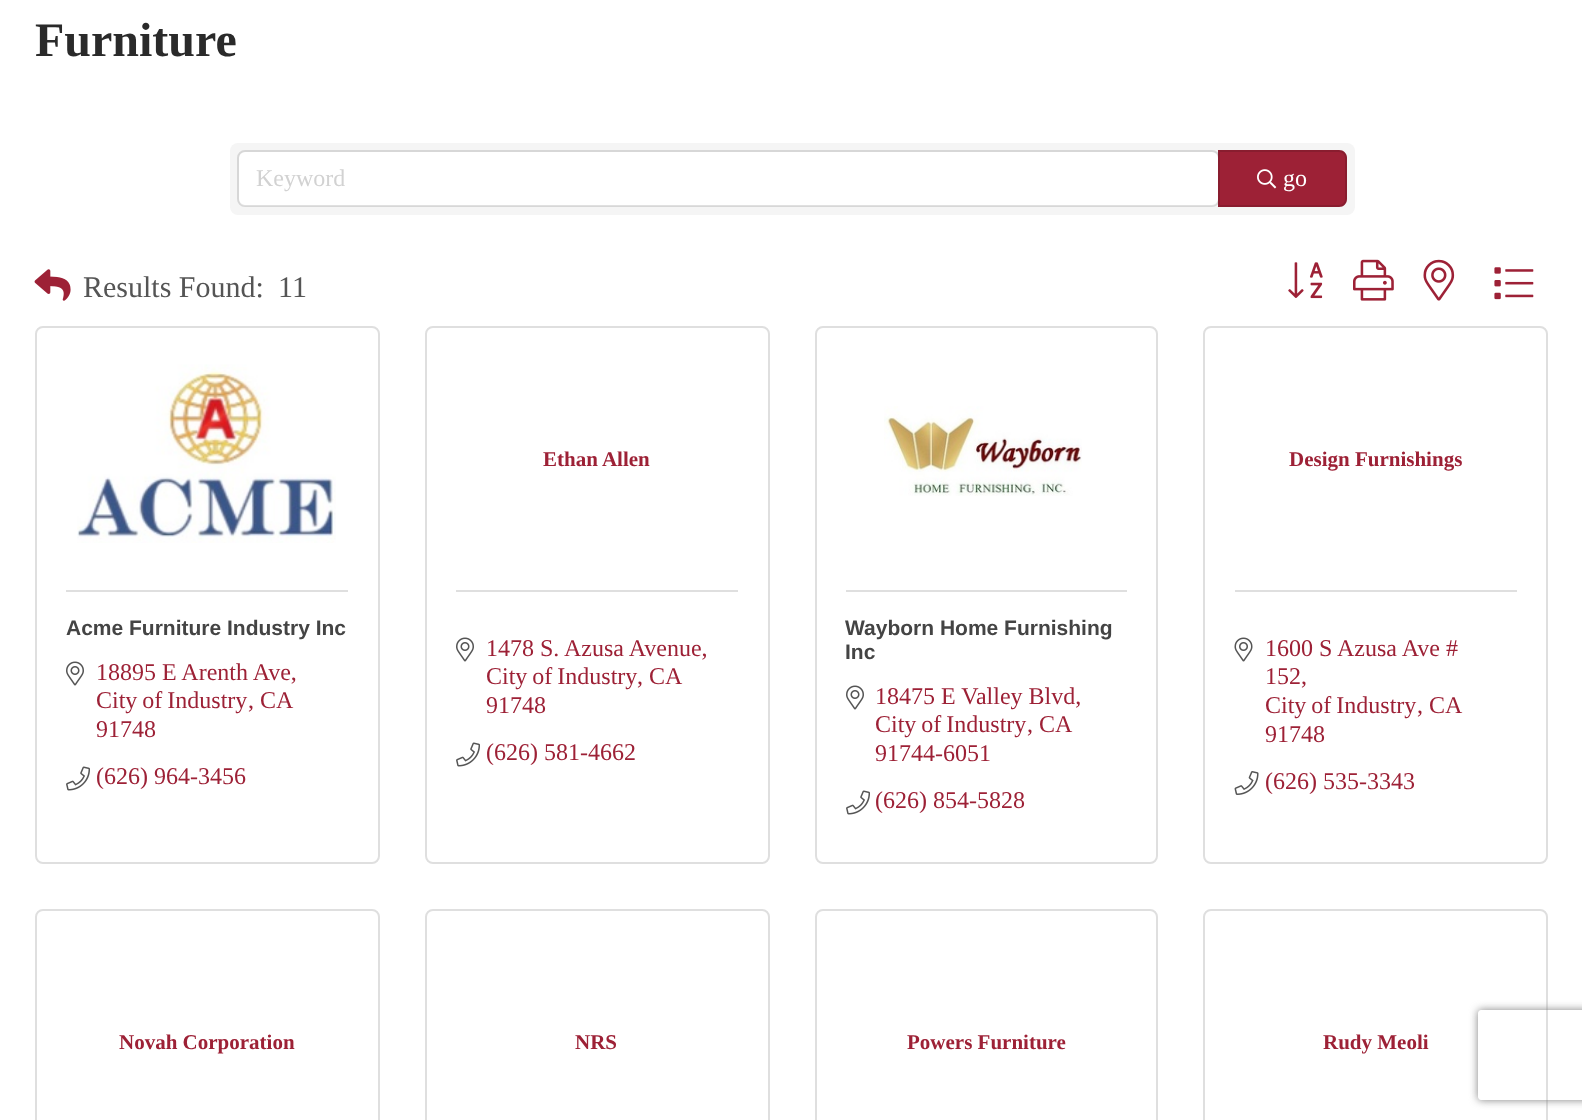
<svg xmlns="http://www.w3.org/2000/svg" width="1582" height="1120">
	<defs>
		<clipPath id="clip1"><path d="M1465 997H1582V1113H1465ZM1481 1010H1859C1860.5 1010 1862 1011.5 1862 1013V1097C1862 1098.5 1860.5 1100 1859 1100H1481C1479.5 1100 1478 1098.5 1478 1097V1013C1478 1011.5 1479.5 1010 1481 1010Z" clip-rule="evenodd" /></clipPath>
	</defs>
	<rect width="100%" height="100%" fill="#FFFFFF" />
	<text x="35" y="56" font-family="Liberation Serif" font-size="48" font-weight="700" fill="#2A2A2A">Furniture</text>
	<rect x="230" y="143" width="1125" height="72" rx="8" fill="#F5F5F5" />
	<rect x="239" y="152" width="979" height="54" rx="6" fill="#FFFFFF" />
	<rect x="238" y="151" width="981" height="55" rx="7" fill="none" stroke="#000000" stroke-opacity="0.12" stroke-width="2" />
	<text x="256" y="186" font-family="Liberation Serif" font-size="24" fill="#D2D2D2">Keyword</text>
	<path d="M1218 150H1339C1343.5 150 1347 153.5 1347 158V199C1347 203.5 1343.5 207 1339 207H1218Z" fill="#9D2136" />
	<path d="M1219 151H1339C1343 151 1346 154 1346 158V199C1346 203 1343 206 1339 206H1219Z" fill="none" stroke="#000000" stroke-opacity="0.12" stroke-width="2" />
	<image x="1257" y="169" width="20" height="20" href="assets/img1.png" />
	<text x="1283" y="186" font-family="Liberation Serif" font-size="24" fill="#FFFFFF">go</text>
	<image x="34" y="269" width="37" height="32" href="assets/img2.png" />
	<g font-family="Liberation Serif" font-size="30" fill="#555555">
		<text x="83" y="297">Results Found:</text>
		<text x="278" y="297">11</text>
	</g>
	<image x="1288" y="262" width="35" height="37" href="assets/img3.png" />
	<image x="1353" y="259" width="41" height="42" href="assets/img4.png" />
	<image x="1423" y="259" width="32" height="42" href="assets/img5.png" />
	<image x="1494" y="267" width="40" height="33" href="assets/img6.png" />
	<rect x="36" y="327" width="343" height="536" rx="7" fill="none" stroke="#DFDFDF" stroke-width="2" />
	<image x="77" y="364" width="259" height="179" href="assets/img7.png" />
	<rect x="66" y="590" width="282" height="2" fill="#DFDFDF" />
	<text x="66" y="635" font-family="Liberation Sans" font-size="21" font-weight="700" fill="#444444">Acme Furniture Industry Inc</text>
	<image x="66" y="661" width="18" height="25" href="assets/img8.png" />
	<g font-family="Liberation Serif" font-size="24" fill="#9D2136">
		<text x="96" y="680">18895 E Arenth Ave,</text>
		<text x="96" y="708" word-spacing="-1">City of Industry</text>
		<text x="248" y="708">, CA</text>
		<text x="96" y="737">91748</text>
	</g>
	<image x="66" y="766" width="24" height="25" href="assets/img9.png" />
	<text x="96" y="784" font-family="Liberation Serif" font-size="24" fill="#9D2136">(626) 964-3456</text>
	<rect x="426" y="327" width="343" height="536" rx="7" fill="none" stroke="#DFDFDF" stroke-width="2" />
	<text x="543" y="466" font-family="Liberation Serif" font-size="21" font-weight="700" fill="#9D2136">Ethan Allen</text>
	<rect x="456" y="590" width="282" height="2" fill="#DFDFDF" />
	<image x="456" y="637" width="18" height="25" href="assets/img8.png" />
	<g font-family="Liberation Serif" font-size="24" fill="#9D2136">
		<text x="486" y="656">1478 S. Azusa Avenue,</text>
		<text x="486" y="684" word-spacing="-1">City of Industry</text>
		<text x="637" y="684">, CA</text>
		<text x="486" y="713">91748</text>
	</g>
	<image x="456" y="742" width="24" height="25" href="assets/img9.png" />
	<text x="486" y="760" font-family="Liberation Serif" font-size="24" fill="#9D2136">(626) 581-4662</text>
	<rect x="816" y="327" width="341" height="536" rx="7" fill="none" stroke="#DFDFDF" stroke-width="2" />
	<image x="884" y="406" width="198" height="90" href="assets/img10.png" />
	<rect x="846" y="590" width="281" height="2" fill="#DFDFDF" />
	<g font-family="Liberation Sans" font-size="21" font-weight="700" fill="#444444">
		<text x="845" y="635">Wayborn Home Furnishing</text>
		<text x="845" y="659">Inc</text>
	</g>
	<image x="846" y="685" width="18" height="25" href="assets/img8.png" />
	<g font-family="Liberation Serif" font-size="24" fill="#9D2136">
		<text x="875" y="704">18475 E Valley Blvd,</text>
		<text x="875" y="732" word-spacing="-1">City of Industry</text>
		<text x="1027" y="732">, CA</text>
		<text x="875" y="761">91744-6051</text>
	</g>
	<image x="846" y="790" width="24" height="25" href="assets/img9.png" />
	<text x="875" y="808" font-family="Liberation Serif" font-size="24" fill="#9D2136">(626) 854-5828</text>
	<rect x="1204" y="327" width="343" height="536" rx="7" fill="none" stroke="#DFDFDF" stroke-width="2" />
	<text x="1289" y="466" font-family="Liberation Serif" font-size="21" font-weight="700" fill="#9D2136">Design Furnishings</text>
	<rect x="1235" y="590" width="282" height="2" fill="#DFDFDF" />
	<image x="1234" y="637" width="19" height="25" href="assets/img11.png" />
	<g font-family="Liberation Serif" font-size="24" fill="#9D2136">
		<text x="1265" y="656">1600 S Azusa Ave #</text>
		<text x="1265" y="684">152,</text>
		<text x="1265" y="713" word-spacing="-1">City of Industry</text>
		<text x="1417" y="713">, CA</text>
		<text x="1265" y="742">91748</text>
	</g>
	<image x="1234" y="771" width="25" height="24" href="assets/img12.png" />
	<text x="1265" y="789" font-family="Liberation Serif" font-size="24" fill="#9D2136">(626) 535-3343</text>
	<rect x="36" y="910" width="343" height="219" rx="7" fill="none" stroke="#DFDFDF" stroke-width="2" />
	<text x="119" y="1049" font-family="Liberation Serif" font-size="21" font-weight="700" fill="#9D2136">Novah Corporation</text>
	<rect x="426" y="910" width="343" height="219" rx="7" fill="none" stroke="#DFDFDF" stroke-width="2" />
	<text x="575" y="1049" font-family="Liberation Serif" font-size="21" font-weight="700" fill="#9D2136">NRS</text>
	<rect x="816" y="910" width="341" height="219" rx="7" fill="none" stroke="#DFDFDF" stroke-width="2" />
	<text x="907" y="1049" font-family="Liberation Serif" font-size="21" font-weight="700" fill="#9D2136">Powers Furniture</text>
	<rect x="1204" y="910" width="343" height="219" rx="7" fill="none" stroke="#DFDFDF" stroke-width="2" />
	<text x="1323" y="1049" font-family="Liberation Serif" font-size="21" font-weight="700" fill="#9D2136">Rudy Meoli</text>
	<g clip-path="url(#clip1)">
		<rect x="1478" y="1010" width="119" height="90" rx="3" fill="#808080" filter="blur(4px)" />
	</g>
</svg>
